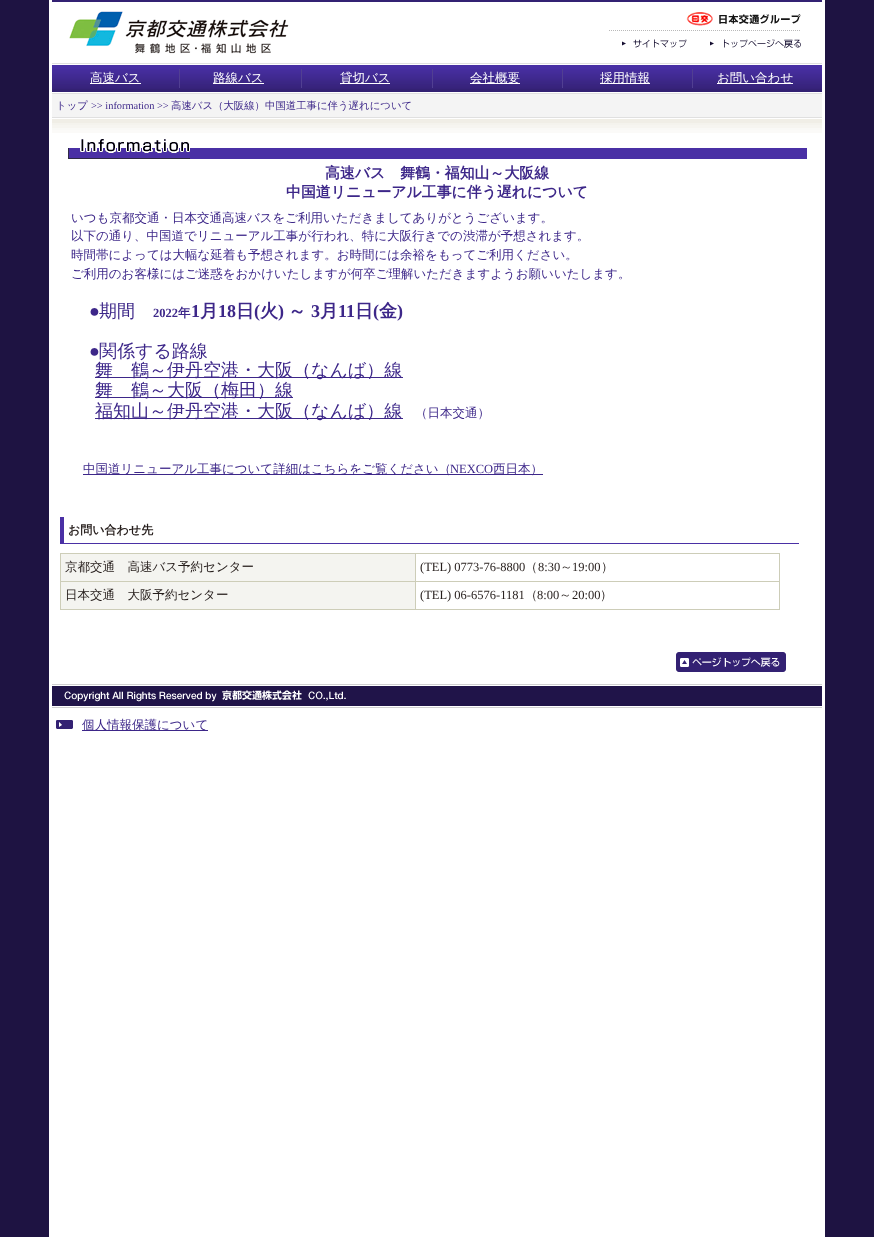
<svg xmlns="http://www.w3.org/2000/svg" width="874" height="1237">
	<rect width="100%" height="100%" fill="#1E1342" />
	<rect x="49" y="0" width="776" height="1237" fill="#FFFFFF" />
	<rect x="52" y="0" width="770" height="2" fill="#332173" />
	<image x="69" y="11" width="220" height="43" href="assets/img1.png" />
	<image x="686" y="12" width="115" height="14" href="assets/img2.png" />
	<image x="609" y="30" width="191" height="1" href="assets/img3.png" />
	<image x="622" y="39" width="65" height="9" href="assets/img4.png" />
	<image x="710" y="39" width="91" height="9" href="assets/img5.png" />
	<rect x="52" y="63" width="770" height="1" fill="#E0E0E0" />
	<rect x="52" y="89" width="770" height="3" fill="#332173" />
	<image x="52" y="65" width="770" height="24" href="assets/img6.png" />
	<rect x="90" y="83" width="51" height="1" fill="#FFFFFF" />
	<text x="90" y="82" font-family="WenQuanYi Zen Hei" font-size="12.5" font-weight="500" fill="#FFFFFF">高速バス</text>
	<rect x="179" y="69" width="1" height="19" fill="#513F92" />
	<rect x="213" y="83" width="51" height="1" fill="#FFFFFF" />
	<text x="213" y="82" font-family="WenQuanYi Zen Hei" font-size="12.5" font-weight="500" fill="#FFFFFF">路線バス</text>
	<rect x="301" y="69" width="1" height="19" fill="#513F92" />
	<rect x="340" y="83" width="50" height="1" fill="#FFFFFF" />
	<text x="340" y="82" font-family="WenQuanYi Zen Hei" font-size="12.5" font-weight="500" fill="#FFFFFF">貸切バス</text>
	<rect x="432" y="69" width="1" height="19" fill="#513F92" />
	<rect x="470" y="83" width="50" height="1" fill="#FFFFFF" />
	<text x="470" y="82" font-family="WenQuanYi Zen Hei" font-size="12.5" font-weight="500" fill="#FFFFFF">会社概要</text>
	<rect x="562" y="69" width="1" height="19" fill="#513F92" />
	<rect x="600" y="83" width="50" height="1" fill="#FFFFFF" />
	<text x="600" y="82" font-family="WenQuanYi Zen Hei" font-size="12.5" font-weight="500" fill="#FFFFFF">採用情報</text>
	<rect x="692" y="69" width="1" height="19" fill="#513F92" />
	<rect x="717" y="83" width="76" height="1" fill="#FFFFFF" />
	<text x="717" y="82" font-family="WenQuanYi Zen Hei" font-size="12.5" font-weight="500" fill="#FFFFFF">お問い合わせ</text>
	<rect x="52" y="93" width="770" height="1" fill="#E0E0E0" />
	<rect x="52" y="94" width="770" height="23" fill="#F4F4F4" />
	<text x="56" y="109" font-family="WenQuanYi Zen Hei" font-size="10.4" font-weight="500" fill="#3D2789">トップ</text>
	<text x="91" y="109" font-family="Liberation Serif" font-size="10.4" fill="#3D2789">&gt;&gt; information &gt;&gt;</text>
	<text x="171" y="109" font-family="WenQuanYi Zen Hei" font-size="10.4" font-weight="500" fill="#3D2789">高速バス（大阪線）中国道工事に伴う遅れについて</text>
	<rect x="52" y="117" width="770" height="1" fill="#E0E0E0" />
	<image x="52" y="119" width="770" height="14" href="assets/img7.png" />
	<rect x="190" y="148" width="617" height="11" fill="#4A30A5" />
	<image x="68" y="139" width="122" height="20" href="assets/img8.png" />
	<g font-family="WenQuanYi Zen Hei" font-size="14.9" font-weight="700" fill="#3D2789">
		<text x="325" y="178">高速バス　舞鶴・福知山～大阪線</text>
		<text x="286" y="197">中国道リニューアル工事に伴う遅れについて</text>
	</g>
	<g font-family="WenQuanYi Zen Hei" font-size="12.5" font-weight="500" fill="#3D2789">
		<text x="71" y="222">いつも京都交通・日本交通高速バスをご利用いただきましてありがとうございます。</text>
		<text x="71" y="240">以下の通り、中国道でリニューアル工事が行われ、特に大阪行きでの渋滞が予想されます。</text>
		<text x="71" y="259">時間帯によっては大幅な延着も予想されます。お時間には余裕をもってご利用ください。</text>
		<text x="71" y="278">ご利用のお客様にはご迷惑をおかけいたしますが何卒ご理解いただきますようお願いいたします。</text>
	</g>
	<text x="89" y="317" font-family="Liberation Serif" font-size="18" fill="#3D2789">●</text>
	<text x="99" y="317" font-family="WenQuanYi Zen Hei" font-size="18" font-weight="500" fill="#3D2789">期間</text>
	<text x="153" y="317" font-family="Liberation Serif" font-size="12.5" font-weight="700" fill="#3D2789">2022</text>
	<text x="178" y="317" font-family="WenQuanYi Zen Hei" font-size="12.5" font-weight="700" fill="#3D2789">年</text>
	<text x="191" y="317" font-family="Liberation Serif" font-size="18" font-weight="700" fill="#3D2789">1</text>
	<text x="200" y="317" font-family="WenQuanYi Zen Hei" font-size="18" font-weight="700" fill="#3D2789">月</text>
	<text x="218" y="317" font-family="Liberation Serif" font-size="18" font-weight="700" fill="#3D2789">18</text>
	<text x="236" y="317" font-family="WenQuanYi Zen Hei" font-size="18" font-weight="700" fill="#3D2789">日</text>
	<text x="254" y="317" font-family="Liberation Serif" font-size="18" font-weight="700" fill="#3D2789">(</text>
	<text x="260" y="317" font-family="WenQuanYi Zen Hei" font-size="18" font-weight="700" fill="#3D2789">火</text>
	<text x="278" y="317" font-family="Liberation Serif" font-size="18" font-weight="700" fill="#3D2789">)</text>
	<text x="288" y="317" font-family="WenQuanYi Zen Hei" font-size="18" font-weight="700" fill="#3D2789">～</text>
	<text x="311" y="317" font-family="Liberation Serif" font-size="18" font-weight="700" fill="#3D2789">3</text>
	<text x="320" y="317" font-family="WenQuanYi Zen Hei" font-size="18" font-weight="700" fill="#3D2789">月</text>
	<text x="338" y="317" font-family="Liberation Serif" font-size="18" font-weight="700" fill="#3D2789">11</text>
	<text x="355" y="317" font-family="WenQuanYi Zen Hei" font-size="18" font-weight="700" fill="#3D2789">日</text>
	<text x="373" y="317" font-family="Liberation Serif" font-size="18" font-weight="700" fill="#3D2789">(</text>
	<text x="379" y="317" font-family="WenQuanYi Zen Hei" font-size="18" font-weight="700" fill="#3D2789">金</text>
	<text x="397" y="317" font-family="Liberation Serif" font-size="18" font-weight="700" fill="#3D2789">)</text>
	<text x="89" y="357" font-family="Liberation Serif" font-size="18" fill="#3D2789">●</text>
	<text x="99" y="357" font-family="WenQuanYi Zen Hei" font-size="18" font-weight="500" fill="#3D2789">関係する路線</text>
	<rect x="95" y="377" width="308" height="1" fill="#3D2789" />
	<text x="95" y="376" font-family="WenQuanYi Zen Hei" font-size="18" font-weight="500" fill="#3D2789">舞　鶴～伊丹空港・大阪（なんば）線</text>
	<rect x="95" y="397" width="198" height="1" fill="#3D2789" />
	<text x="95" y="396" font-family="WenQuanYi Zen Hei" font-size="18" font-weight="500" fill="#3D2789">舞　鶴～大阪（梅田）線</text>
	<rect x="95" y="418" width="308" height="1" fill="#3D2789" />
	<text x="95" y="417" font-family="WenQuanYi Zen Hei" font-size="18" font-weight="500" fill="#3D2789">福知山～伊丹空港・大阪（なんば）線</text>
	<text x="415" y="417" font-family="WenQuanYi Zen Hei" font-size="12.5" font-weight="500" fill="#3D2789">（日本交通）</text>
	<rect x="83" y="474" width="460" height="1" fill="#3D2789" />
	<text x="83" y="473" font-family="WenQuanYi Zen Hei" font-size="12.5" font-weight="500" fill="#3D2789">中国道リニューアル工事について詳細はこちらをご覧ください（</text>
	<text x="450" y="473" font-family="Liberation Serif" font-size="12.5" fill="#3D2789">NEXCO</text>
	<text x="493" y="473" font-family="WenQuanYi Zen Hei" font-size="12.5" font-weight="500" fill="#3D2789">西日本）</text>
	<rect x="60" y="543" width="739" height="1" fill="#4A30A5" />
	<rect x="60" y="517" width="4" height="27" fill="#4A30A5" />
	<text x="68" y="534" font-family="WenQuanYi Zen Hei" font-size="12" font-weight="700" fill="#251D1B">お問い合わせ先</text>
	<rect x="60" y="553" width="720" height="57" fill="#CDCDB8" />
	<rect x="61" y="554" width="354" height="27" fill="#F4F4F0" />
	<text x="65" y="571" font-family="WenQuanYi Zen Hei" font-size="12.5" font-weight="500" fill="#251D1B">京都交通　高速バス予約センター</text>
	<rect x="416" y="554" width="363" height="27" fill="#FFFFFF" />
	<text x="420" y="571" font-family="Liberation Serif" font-size="12.5" fill="#251D1B">(TEL) 0773-76-8800</text>
	<text x="525" y="571" font-family="WenQuanYi Zen Hei" font-size="12.5" font-weight="500" fill="#251D1B">（</text>
	<text x="538" y="571" font-family="Liberation Serif" font-size="12.5" fill="#251D1B">8:30</text>
	<text x="560" y="571" font-family="WenQuanYi Zen Hei" font-size="12.5" font-weight="500" fill="#251D1B">～</text>
	<text x="572" y="571" font-family="Liberation Serif" font-size="12.5" fill="#251D1B">19:00</text>
	<text x="601" y="571" font-family="WenQuanYi Zen Hei" font-size="12.5" font-weight="500" fill="#251D1B">）</text>
	<rect x="61" y="582" width="354" height="27" fill="#F4F4F0" />
	<text x="65" y="599" font-family="WenQuanYi Zen Hei" font-size="12.5" font-weight="500" fill="#251D1B">日本交通　大阪予約センター</text>
	<rect x="416" y="582" width="363" height="27" fill="#FFFFFF" />
	<text x="420" y="599" font-family="Liberation Serif" font-size="12.5" fill="#251D1B">(TEL) 06-6576-1181</text>
	<text x="525" y="599" font-family="WenQuanYi Zen Hei" font-size="12.5" font-weight="500" fill="#251D1B">（</text>
	<text x="537" y="599" font-family="Liberation Serif" font-size="12.5" fill="#251D1B">8:00</text>
	<text x="559" y="599" font-family="WenQuanYi Zen Hei" font-size="12.5" font-weight="500" fill="#251D1B">～</text>
	<text x="572" y="599" font-family="Liberation Serif" font-size="12.5" fill="#251D1B">20:00</text>
	<text x="600" y="599" font-family="WenQuanYi Zen Hei" font-size="12.5" font-weight="500" fill="#251D1B">）</text>
	<image x="676" y="652" width="110" height="20" href="assets/img9.png" />
	<rect x="52" y="684" width="770" height="1" fill="#D0D0D0" />
	<rect x="52" y="686" width="770" height="20" fill="#201449" />
	<image x="64" y="690" width="282" height="12" href="assets/img10.png" />
	<rect x="52" y="707" width="770" height="1" fill="#D0D0D0" />
	<image x="56" y="720" width="17" height="9" href="assets/img11.png" />
	<rect x="82" y="730" width="126" height="1" fill="#3D2789" />
	<text x="82" y="729" font-family="WenQuanYi Zen Hei" font-size="12.5" font-weight="500" fill="#3D2789">個人情報保護について</text>
</svg>
